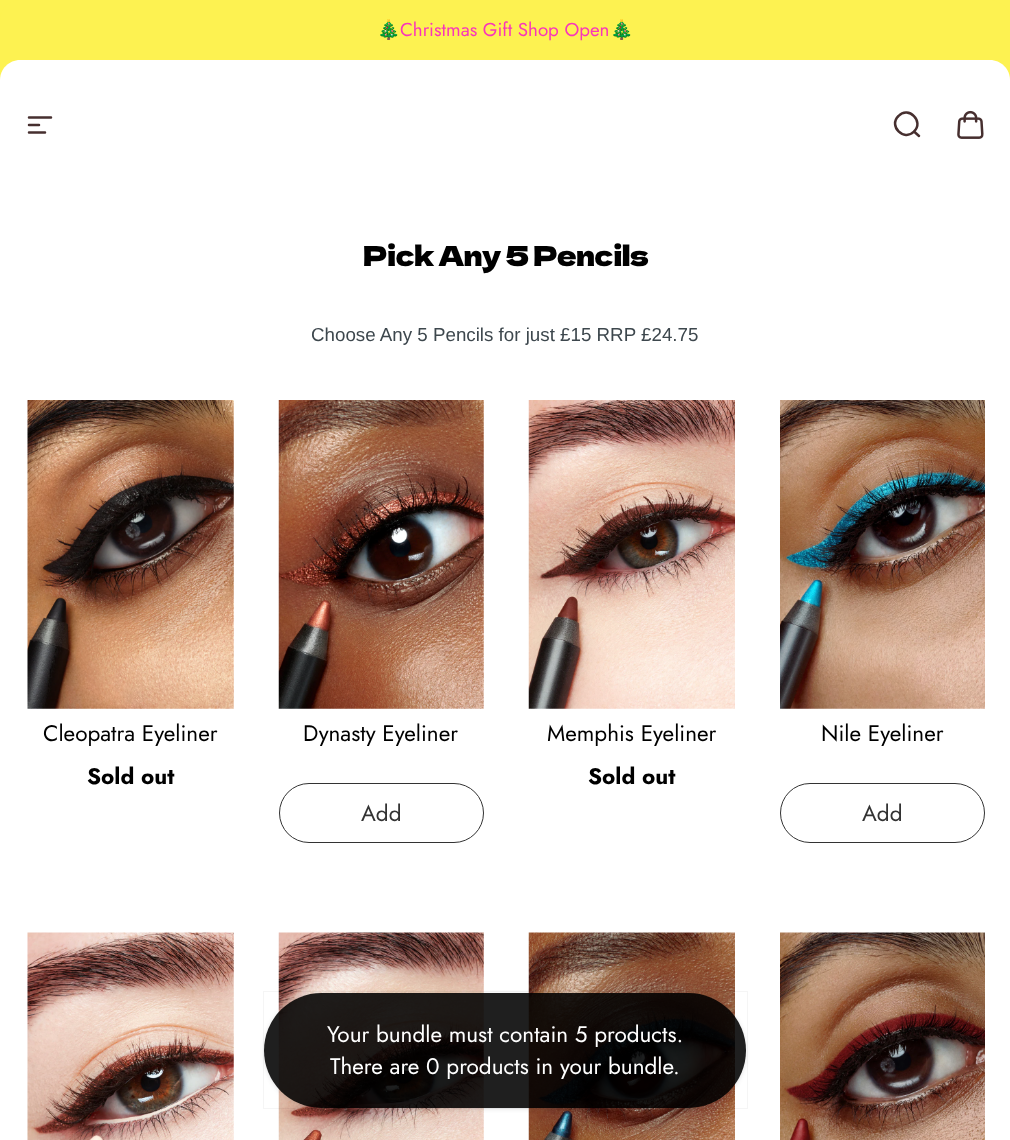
<svg xmlns="http://www.w3.org/2000/svg" width="1010" height="1140">
	<defs>
		<clipPath id="clip1"><path d="M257 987H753V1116H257ZM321.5 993H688.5C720.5 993 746 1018.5 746 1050.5C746 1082.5 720.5 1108 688.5 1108H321.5C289.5 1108 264 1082.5 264 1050.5C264 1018.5 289.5 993 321.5 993Z" clip-rule="evenodd" /></clipPath>
	</defs>
	<rect width="100%" height="100%" fill="#FFFFFF" />
	<rect x="0" y="0" width="1010" height="20" fill="#FDF251" />
	<path d="M20 0H990C1001 0 1010 9 1010 20V80H0V20C0 9 9 0 20 0Z" fill="#FDF251" />
	<text x="377" y="36" font-family="Noto Color Emoji" font-size="18.75" fill="#F935BA">🎄</text>
	<text x="400" y="36" font-family="Jost" font-size="18.75" fill="#F935BA">Christmas Gift Shop Open</text>
	<text x="610" y="36" font-family="Noto Color Emoji" font-size="18.75" fill="#F935BA">🎄</text>
	<path d="M20 60H990C1001 60 1010 69 1010 80V190H0V80C0 69 9 60 20 60Z" fill="#FFFFFF" />
	<path d="M29 117.5H51M29 125H39M29 132.5H45" fill="none" stroke="#462F2F" stroke-width="2.5" stroke-linecap="round" />
	<path d="M919 136L914 131.5M914 131.5C924.5 121.5 908.5 105.5 898.5 116C888 126 904 142 914 131.5Z" fill="none" stroke="#462F2F" stroke-width="2.5" stroke-linecap="round" />
	<image x="957" y="110" width="27" height="29" href="assets/img1.png" />
	<text x="363" y="266" font-family="Dela Gothic One" font-size="27.5" letter-spacing="-0.8" fill="#000000">Pick Any 5 Pencils</text>
	<text x="311" y="341" font-family="Liberation Sans" font-size="18.75" fill="#3D474D">Choose Any 5 Pencils for just £15 RRP £24.75</text>
	<image x="27" y="400" width="207" height="309" href="assets/img2.png" />
	<text x="43" y="741" font-family="Jost" font-size="22.5" fill="#000000">Cleopatra Eyeliner</text>
	<text x="87" y="784" font-family="Jost" font-size="22.5" font-weight="700" fill="#000000">Sold out</text>
	<image x="278" y="400" width="206" height="309" href="assets/img3.png" />
	<text x="303" y="741" font-family="Jost" font-size="22.5" fill="#000000">Dynasty Eyeliner</text>
	<rect x="279.5" y="783.5" width="204" height="59" rx="29.5" fill="none" stroke="#333333" />
	<text x="361" y="821" font-family="Jost" font-size="22.5" fill="#333333">Add</text>
	<image x="528" y="400" width="207" height="309" href="assets/img4.png" />
	<text x="547" y="741" font-family="Jost" font-size="22.5" fill="#000000">Memphis Eyeliner</text>
	<text x="588" y="784" font-family="Jost" font-size="22.5" font-weight="700" fill="#000000">Sold out</text>
	<image x="780" y="400" width="205" height="309" href="assets/img5.png" />
	<text x="821" y="741" font-family="Jost" font-size="22.5" fill="#000000">Nile Eyeliner</text>
	<rect x="780.5" y="783.5" width="204" height="59" rx="29.5" fill="none" stroke="#333333" />
	<text x="862" y="821" font-family="Jost" font-size="22.5" fill="#333333">Add</text>
	<image x="27" y="932" width="207" height="208" href="assets/img6.png" />
	<image x="278" y="932" width="206" height="208" href="assets/img7.png" />
	<image x="528" y="932" width="207" height="208" href="assets/img8.png" />
	<image x="780" y="932" width="205" height="208" href="assets/img9.png" />
	<g clip-path="url(#clip1)">
		<rect x="264" y="994" width="482" height="115" rx="57.5" fill="#3F3F44" fill-opacity="0.15" filter="blur(2px)" />
	</g>
	<rect x="263.5" y="991.5" width="484" height="117" fill="none" stroke="#3F3F44" stroke-opacity="0.05" />
	<rect x="264" y="993" width="482" height="115" rx="57.5" fill="#000000" fill-opacity="0.88" />
	<g font-family="Jost" font-size="22.5" fill="#FFFFFF">
		<text x="327" y="1042">Your bundle must contain 5 products.</text>
		<text x="330" y="1074">There are 0 products in your bundle.</text>
	</g>
</svg>
